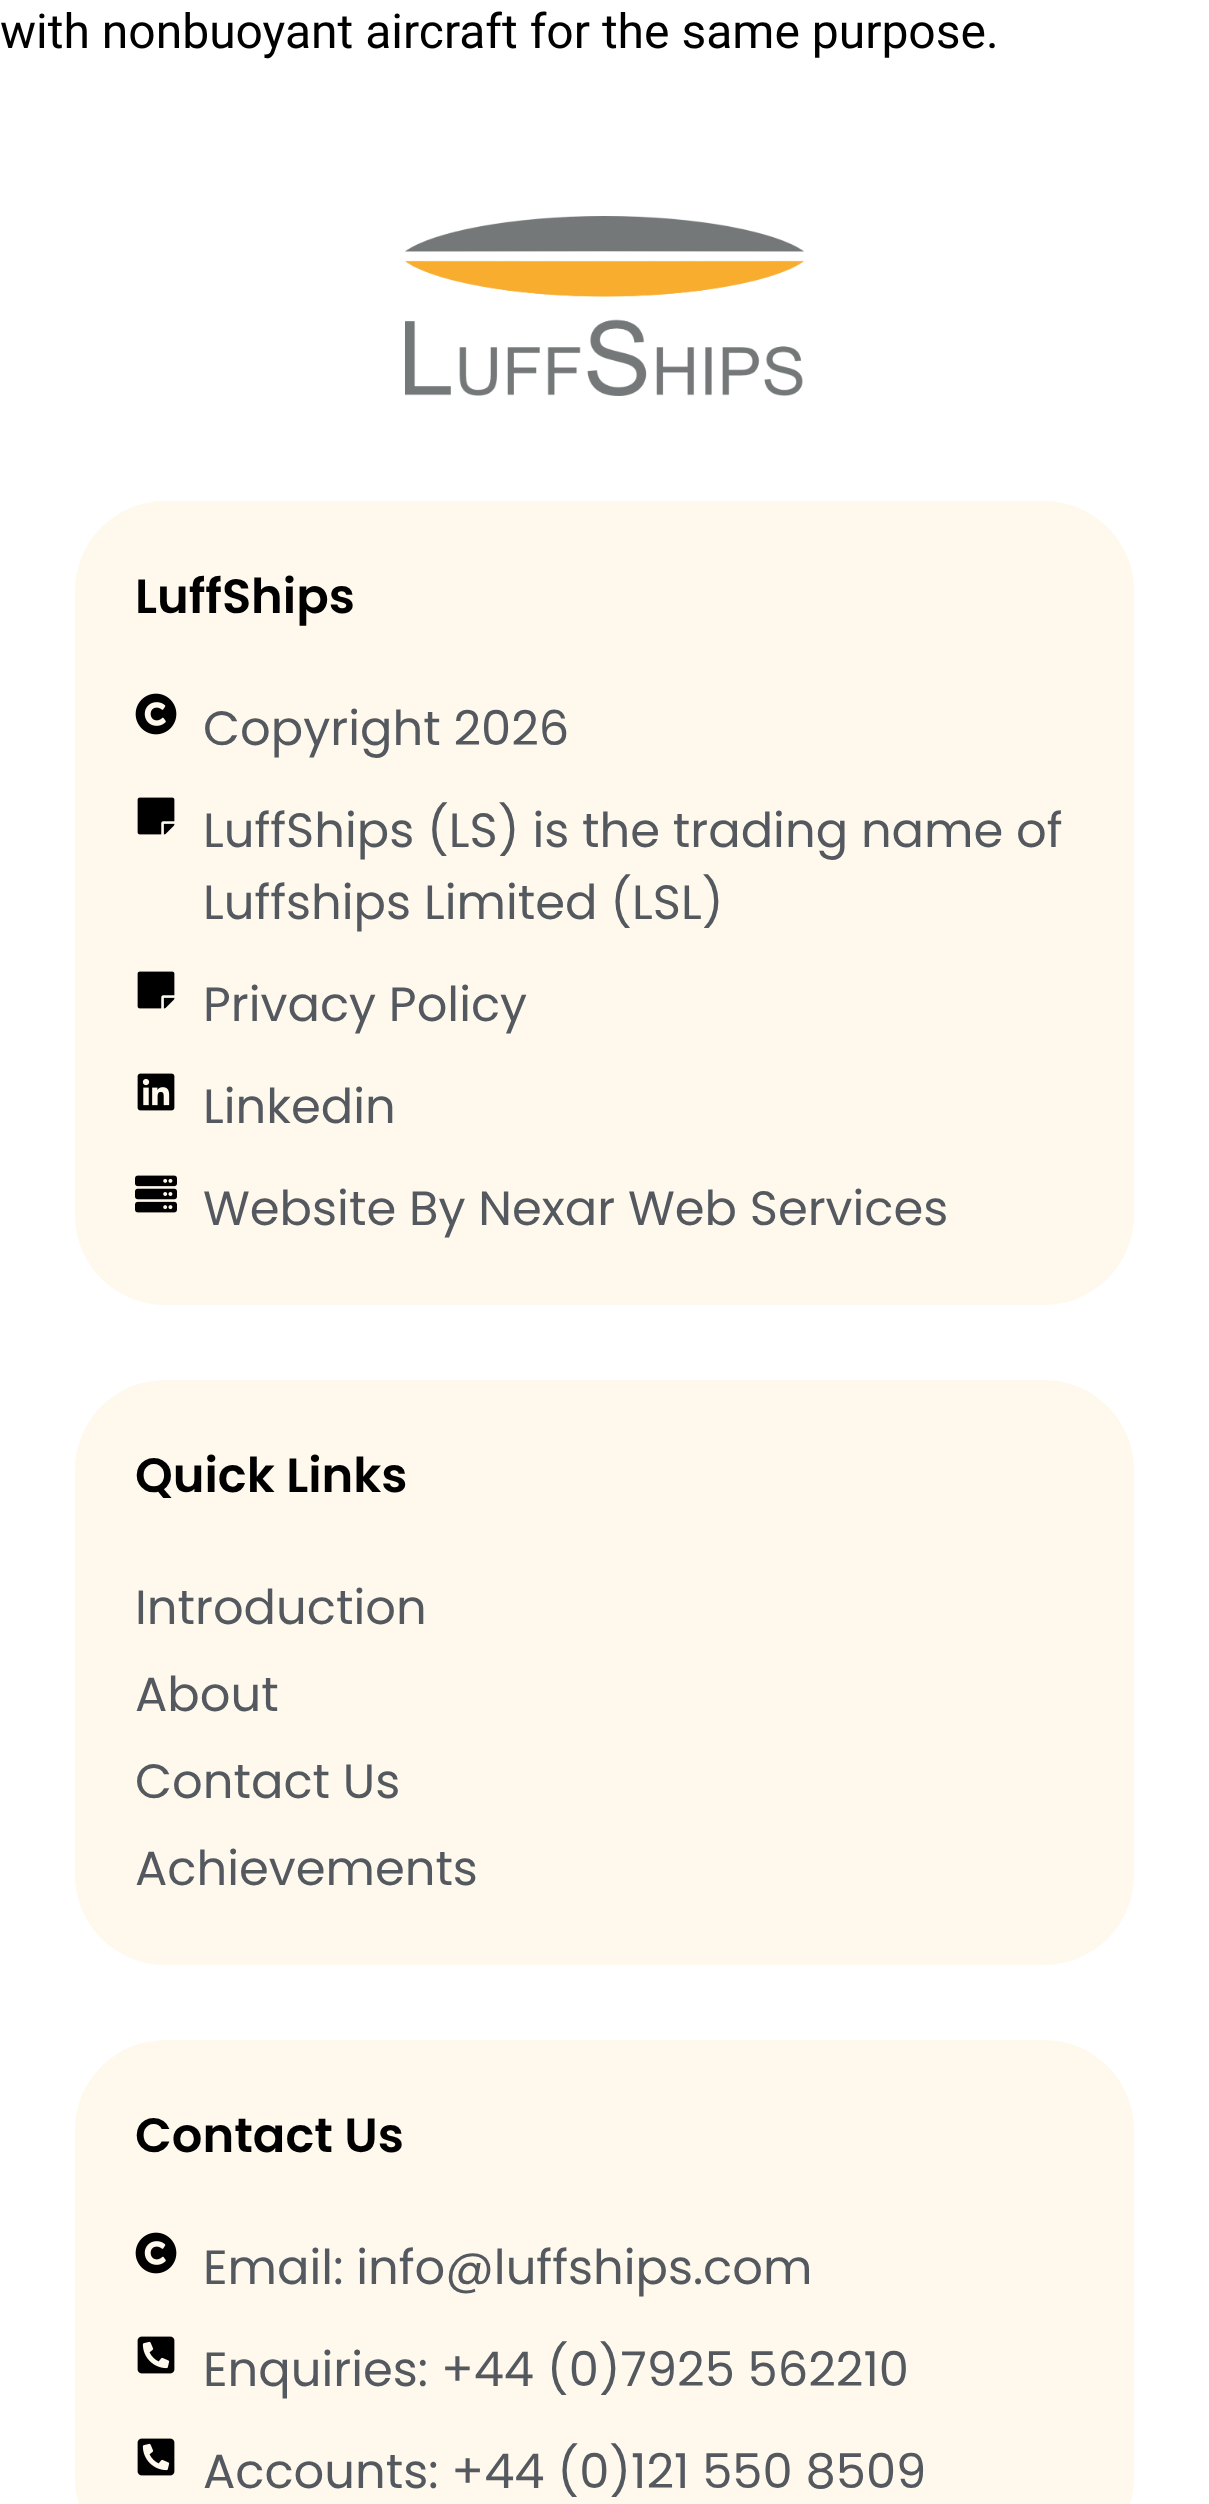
<svg xmlns="http://www.w3.org/2000/svg" width="1209" height="2504">
	<rect width="100%" height="100%" fill="#FFFFFF" />
	<text x="0" y="48" font-family="Roboto" font-size="48" fill="#000000">with nonbuoyant aircraft for the same purpose.</text>
	<image x="405" y="216" width="399" height="180" href="assets/img1.png" />
	<rect x="75" y="501" width="1059" height="804" rx="90" fill="#FFF8EC" />
	<text x="135" y="613" font-family="Poppins" font-size="48" font-weight="600" fill="#000000">LuffShips</text>
	<image x="135" y="693" width="42" height="42" href="assets/img2.png" />
	<text x="203" y="745" font-family="Poppins" font-size="48" fill="#54595F">Copyright 2026</text>
	<image x="137" y="797" width="38" height="38" href="assets/img3.png" />
	<g font-family="Poppins" font-size="48" fill="#54595F">
		<text x="203" y="847">LuffShips (LS) is the trading name of</text>
		<text x="203" y="919">Luffships Limited (LSL)</text>
	</g>
	<image x="137" y="971" width="38" height="38" href="assets/img3.png" />
	<text x="203" y="1021" font-family="Poppins" font-size="48" fill="#54595F">Privacy Policy</text>
	<image x="137" y="1073" width="38" height="38" href="assets/img4.png" />
	<text x="203" y="1123" font-family="Poppins" font-size="48" fill="#54595F">Linkedin</text>
	<image x="135" y="1175" width="42" height="38" href="assets/img5.png" />
	<text x="203" y="1225" font-family="Poppins" font-size="48" fill="#54595F">Website By Nexar Web Services</text>
	<rect x="75" y="1380" width="1059" height="585" rx="90" fill="#FFF8EC" />
	<text x="135" y="1492" font-family="Poppins" font-size="48" font-weight="600" fill="#000000">Quick Links</text>
	<g font-family="Poppins" font-size="48" fill="#54595F">
		<text x="135" y="1624">Introduction</text>
		<text x="135" y="1711">About</text>
		<text x="135" y="1798">Contact Us</text>
		<text x="135" y="1885">Achievements</text>
	</g>
	<rect x="75" y="2040" width="1059" height="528" rx="90" fill="#FFF8EC" />
	<text x="135" y="2152" font-family="Poppins" font-size="48" font-weight="600" fill="#000000">Contact Us</text>
	<image x="135" y="2232" width="42" height="42" href="assets/img2.png" />
	<text x="203" y="2284" font-family="Poppins" font-size="48" fill="#54595F">Email: info@luffships.com</text>
	<image x="137" y="2336" width="38" height="38" href="assets/img6.png" />
	<text x="203" y="2386" font-family="Poppins" font-size="48" fill="#54595F">Enquiries: +44 (0)7925 562210</text>
	<image x="137" y="2438" width="38" height="38" href="assets/img6.png" />
	<text x="203" y="2488" font-family="Poppins" font-size="48" fill="#54595F">Accounts: +44 (0)121 550 8509</text>
</svg>
